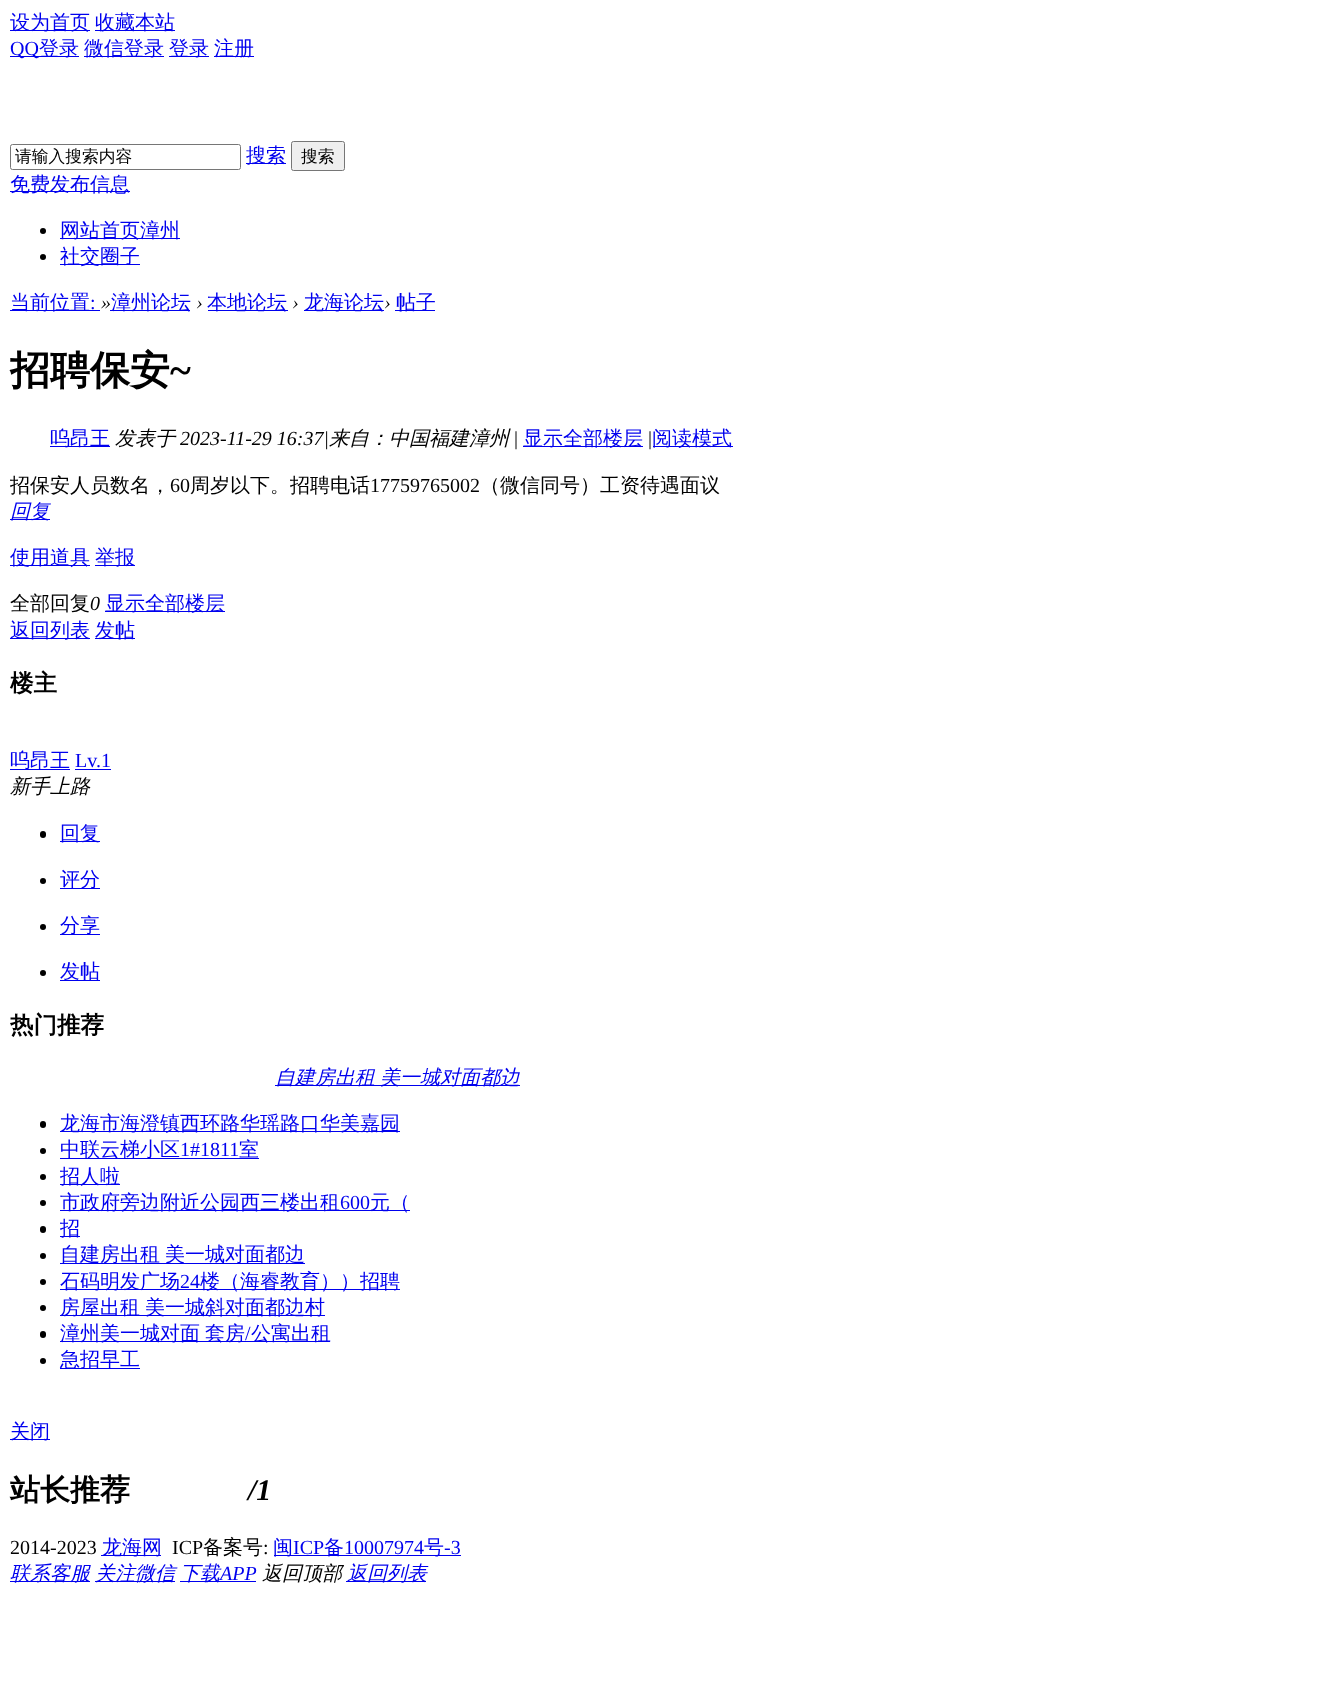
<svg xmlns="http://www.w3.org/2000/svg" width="1329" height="1693">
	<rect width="100%" height="100%" fill="#FFFFFF" />
	<rect x="10" y="30" width="80" height="1" fill="#0000EE" />
	<text x="10" y="29" font-family="WenQuanYi Zen Hei" font-size="20" font-weight="500" fill="#0000EE">设为首页</text>
	<rect x="95" y="30" width="80" height="1" fill="#0000EE" />
	<text x="95" y="29" font-family="WenQuanYi Zen Hei" font-size="20" font-weight="500" fill="#0000EE">收藏本站</text>
	<rect x="10" y="56" width="69" height="1" fill="#0000EE" />
	<text x="10" y="55" font-family="Liberation Serif" font-size="20" fill="#0000EE">QQ</text>
	<text x="39" y="55" font-family="WenQuanYi Zen Hei" font-size="20" font-weight="500" fill="#0000EE">登录</text>
	<rect x="84" y="56" width="80" height="1" fill="#0000EE" />
	<text x="84" y="55" font-family="WenQuanYi Zen Hei" font-size="20" font-weight="500" fill="#0000EE">微信登录</text>
	<rect x="169" y="56" width="40" height="1" fill="#0000EE" />
	<text x="169" y="55" font-family="WenQuanYi Zen Hei" font-size="20" font-weight="500" fill="#0000EE">登录</text>
	<rect x="214" y="56" width="40" height="1" fill="#0000EE" />
	<text x="214" y="55" font-family="WenQuanYi Zen Hei" font-size="20" font-weight="500" fill="#0000EE">注册</text>
	<rect x="10.5" y="144.5" width="230" height="25" rx="2" fill="none" stroke="#767676" />
	<text x="15" y="162" font-family="WenQuanYi Zen Hei" font-size="16.75" font-weight="500" fill="#000000">请输入搜索内容</text>
	<rect x="246" y="163" width="40" height="1" fill="#0000EE" />
	<text x="246" y="162" font-family="WenQuanYi Zen Hei" font-size="20" font-weight="500" fill="#0000EE">搜索</text>
	<rect x="291.5" y="141.5" width="53" height="29" rx="2" fill="#EFEFEF" stroke="#767676" />
	<text x="301" y="162" font-family="WenQuanYi Zen Hei" font-size="16.75" font-weight="500" fill="#000000">搜索</text>
	<rect x="10" y="191" width="120" height="1" fill="#0000EE" />
	<text x="10" y="191" font-family="WenQuanYi Zen Hei" font-size="20" font-weight="500" fill="#0000EE">免费发布信息</text>
	<circle cx="43" cy="231" r="3" fill="#000000" />
	<rect x="60" y="238" width="120" height="1" fill="#0000EE" />
	<text x="60" y="237" font-family="WenQuanYi Zen Hei" font-size="20" font-weight="500" fill="#0000EE">网站首页漳州</text>
	<circle cx="43" cy="257" r="3" fill="#000000" />
	<rect x="60" y="264" width="80" height="1" fill="#0000EE" />
	<text x="60" y="263" font-family="WenQuanYi Zen Hei" font-size="20" font-weight="500" fill="#0000EE">社交圈子</text>
	<rect x="10" y="310" width="90" height="1" fill="#0000EE" />
	<text x="10" y="309" font-family="WenQuanYi Zen Hei" font-size="20" font-weight="500" fill="#0000EE">当前位置</text>
	<text x="90" y="309" font-family="Liberation Serif" font-size="20" fill="#0000EE">:</text>
	<text x="101" y="309" font-family="Liberation Serif" font-size="20" font-style="italic" fill="#000000">»</text>
	<rect x="110" y="310" width="80" height="1" fill="#0000EE" />
	<text x="111" y="309" font-family="WenQuanYi Zen Hei" font-size="20" font-weight="500" fill="#0000EE">漳州论坛</text>
	<text x="196" y="309" font-family="Liberation Serif" font-size="20" font-style="italic" fill="#000000">›</text>
	<rect x="208" y="310" width="80" height="1" fill="#0000EE" />
	<text x="207" y="309" font-family="WenQuanYi Zen Hei" font-size="20" font-weight="500" fill="#0000EE">本地论坛</text>
	<text x="292" y="309" font-family="Liberation Serif" font-size="20" font-style="italic" fill="#000000">›</text>
	<rect x="304" y="310" width="80" height="1" fill="#0000EE" />
	<text x="304" y="309" font-family="WenQuanYi Zen Hei" font-size="20" font-weight="500" fill="#0000EE">龙海论坛</text>
	<text x="384" y="309" font-family="Liberation Serif" font-size="20" font-style="italic" fill="#000000">›</text>
	<rect x="395" y="310" width="40" height="1" fill="#0000EE" />
	<text x="396" y="309" font-family="WenQuanYi Zen Hei" font-size="20" font-weight="500" fill="#0000EE">帖子</text>
	<text x="10" y="384" font-family="WenQuanYi Zen Hei" font-size="40" font-weight="700" fill="#000000">招聘保安</text>
	<text x="170" y="384" font-family="Liberation Serif" font-size="40" font-weight="700" fill="#000000">~</text>
	<rect x="50" y="446" width="60" height="1" fill="#0000EE" />
	<text x="50" y="445" font-family="WenQuanYi Zen Hei" font-size="20" font-weight="500" fill="#0000EE">呜昂王</text>
	<text x="115" y="445" font-family="WenQuanYi Zen Hei" font-size="20" font-weight="500" font-style="italic" fill="#000000">发表于</text>
	<text x="180" y="445" font-family="Liberation Serif" font-size="20" font-style="italic" fill="#000000">2023-11-29 16:37|</text>
	<text x="329" y="445" font-family="WenQuanYi Zen Hei" font-size="20" font-weight="500" font-style="italic" fill="#000000">来自：中国福建漳州</text>
	<text x="514" y="445" font-family="Liberation Serif" font-size="20" fill="#000000">|</text>
	<rect x="523" y="446" width="120" height="1" fill="#0000EE" />
	<text x="523" y="445" font-family="WenQuanYi Zen Hei" font-size="20" font-weight="500" fill="#0000EE">显示全部楼层</text>
	<text x="648" y="445" font-family="Liberation Serif" font-size="20" fill="#000000">|</text>
	<rect x="653" y="446" width="80" height="1" fill="#0000EE" />
	<text x="652" y="445" font-family="WenQuanYi Zen Hei" font-size="20" font-weight="500" fill="#0000EE">阅读模式</text>
	<text x="10" y="492" font-family="WenQuanYi Zen Hei" font-size="20" font-weight="500" fill="#000000">招保安人员数名，</text>
	<text x="170" y="492" font-family="Liberation Serif" font-size="20" fill="#000000">60</text>
	<text x="190" y="492" font-family="WenQuanYi Zen Hei" font-size="20" font-weight="500" fill="#000000">周岁以下。招聘电话</text>
	<text x="370" y="492" font-family="Liberation Serif" font-size="20" fill="#000000">17759765002</text>
	<text x="480" y="492" font-family="WenQuanYi Zen Hei" font-size="20" font-weight="500" fill="#000000">（微信同号）工资待遇面议</text>
	<rect x="10" y="519" width="40" height="1" fill="#0000EE" />
	<text x="10" y="518" font-family="WenQuanYi Zen Hei" font-size="20" font-weight="500" font-style="italic" fill="#0000EE">回复</text>
	<rect x="10" y="565" width="80" height="1" fill="#0000EE" />
	<text x="10" y="564" font-family="WenQuanYi Zen Hei" font-size="20" font-weight="500" fill="#0000EE">使用道具</text>
	<rect x="95" y="565" width="40" height="1" fill="#0000EE" />
	<text x="95" y="564" font-family="WenQuanYi Zen Hei" font-size="20" font-weight="500" fill="#0000EE">举报</text>
	<text x="10" y="610" font-family="WenQuanYi Zen Hei" font-size="20" font-weight="500" fill="#000000">全部回复</text>
	<text x="90" y="610" font-family="Liberation Serif" font-size="20" font-style="italic" fill="#000000">0</text>
	<rect x="105" y="611" width="120" height="1" fill="#0000EE" />
	<text x="105" y="610" font-family="WenQuanYi Zen Hei" font-size="20" font-weight="500" fill="#0000EE">显示全部楼层</text>
	<rect x="10" y="638" width="80" height="1" fill="#0000EE" />
	<text x="10" y="637" font-family="WenQuanYi Zen Hei" font-size="20" font-weight="500" fill="#0000EE">返回列表</text>
	<rect x="95" y="638" width="40" height="1" fill="#0000EE" />
	<text x="95" y="637" font-family="WenQuanYi Zen Hei" font-size="20" font-weight="500" fill="#0000EE">发帖</text>
	<text x="10" y="691" font-family="WenQuanYi Zen Hei" font-size="23.5" font-weight="700" fill="#000000">楼主</text>
	<rect x="10" y="769" width="60" height="1" fill="#0000EE" />
	<text x="10" y="767" font-family="WenQuanYi Zen Hei" font-size="20" font-weight="500" fill="#0000EE">呜昂王</text>
	<text x="75" y="767" font-family="Liberation Serif" font-size="20" fill="#0000EE">Lv.1</text>
	<rect x="75" y="769" width="36" height="1" fill="#0000EE" />
	<text x="10" y="793" font-family="WenQuanYi Zen Hei" font-size="20" font-weight="500" font-style="italic" fill="#000000">新手上路</text>
	<rect x="40" y="831" width="6" height="7" rx="3" fill="#000000" />
	<rect x="60" y="841" width="40" height="1" fill="#0000EE" />
	<text x="60" y="840" font-family="WenQuanYi Zen Hei" font-size="20" font-weight="500" fill="#0000EE">回复</text>
	<circle cx="43" cy="881" r="3" fill="#000000" />
	<rect x="60" y="888" width="40" height="1" fill="#0000EE" />
	<text x="60" y="886" font-family="WenQuanYi Zen Hei" font-size="20" font-weight="500" fill="#0000EE">评分</text>
	<circle cx="43" cy="927" r="3" fill="#000000" />
	<rect x="60" y="934" width="40" height="1" fill="#0000EE" />
	<text x="60" y="932" font-family="WenQuanYi Zen Hei" font-size="20" font-weight="500" fill="#0000EE">分享</text>
	<circle cx="43" cy="973" r="3" fill="#000000" />
	<rect x="60" y="980" width="40" height="1" fill="#0000EE" />
	<text x="60" y="978" font-family="WenQuanYi Zen Hei" font-size="20" font-weight="500" fill="#0000EE">发帖</text>
	<text x="10" y="1033" font-family="WenQuanYi Zen Hei" font-size="23.5" font-weight="700" fill="#000000">热门推荐</text>
	<rect x="275" y="1085" width="245" height="1" fill="#0000EE" />
	<text x="275" y="1084" word-spacing="-1" font-family="WenQuanYi Zen Hei" font-size="20" font-weight="500" font-style="italic" fill="#0000EE">自建房出租 美一城对面都边</text>
	<rect x="40" y="1121" width="6" height="7" rx="3" fill="#000000" />
	<rect x="60" y="1131" width="340" height="1" fill="#0000EE" />
	<text x="60" y="1130" font-family="WenQuanYi Zen Hei" font-size="20" font-weight="500" fill="#0000EE">龙海市海澄镇西环路华瑶路口华美嘉园</text>
	<circle cx="43" cy="1151" r="3" fill="#000000" />
	<rect x="60" y="1158" width="199" height="1" fill="#0000EE" />
	<text x="60" y="1156" font-family="WenQuanYi Zen Hei" font-size="20" font-weight="500" fill="#0000EE">中联云梯小区</text>
	<text x="180" y="1156" font-family="Liberation Serif" font-size="20" fill="#0000EE">1#1811</text>
	<text x="239" y="1156" font-family="WenQuanYi Zen Hei" font-size="20" font-weight="500" fill="#0000EE">室</text>
	<circle cx="43" cy="1177" r="3" fill="#000000" />
	<rect x="60" y="1184" width="60" height="1" fill="#0000EE" />
	<text x="60" y="1183" font-family="WenQuanYi Zen Hei" font-size="20" font-weight="500" fill="#0000EE">招人啦</text>
	<circle cx="43" cy="1203" r="3" fill="#000000" />
	<rect x="60" y="1210" width="350" height="1" fill="#0000EE" />
	<text x="60" y="1209" font-family="WenQuanYi Zen Hei" font-size="20" font-weight="500" fill="#0000EE">市政府旁边附近公园西三楼出租</text>
	<text x="340" y="1209" font-family="Liberation Serif" font-size="20" fill="#0000EE">600</text>
	<text x="370" y="1209" font-family="WenQuanYi Zen Hei" font-size="20" font-weight="500" fill="#0000EE">元（</text>
	<rect x="40" y="1226" width="6" height="7" rx="3" fill="#000000" />
	<rect x="60" y="1236" width="20" height="1" fill="#0000EE" />
	<text x="60" y="1235" font-family="WenQuanYi Zen Hei" font-size="20" font-weight="500" fill="#0000EE">招</text>
	<circle cx="43" cy="1256" r="3" fill="#000000" />
	<rect x="60" y="1263" width="245" height="1" fill="#0000EE" />
	<text x="60" y="1261" word-spacing="-1" font-family="WenQuanYi Zen Hei" font-size="20" font-weight="500" fill="#0000EE">自建房出租 美一城对面都边</text>
	<circle cx="43" cy="1282" r="3" fill="#000000" />
	<rect x="60" y="1289" width="340" height="1" fill="#0000EE" />
	<text x="60" y="1288" font-family="WenQuanYi Zen Hei" font-size="20" font-weight="500" fill="#0000EE">石码明发广场</text>
	<text x="180" y="1288" font-family="Liberation Serif" font-size="20" fill="#0000EE">24</text>
	<text x="200" y="1288" font-family="WenQuanYi Zen Hei" font-size="20" font-weight="500" fill="#0000EE">楼（海睿教育））招聘</text>
	<circle cx="43" cy="1308" r="3" fill="#000000" />
	<rect x="60" y="1315" width="265" height="1" fill="#0000EE" />
	<text x="60" y="1314" word-spacing="-1" font-family="WenQuanYi Zen Hei" font-size="20" font-weight="500" fill="#0000EE">房屋出租 美一城斜对面都边村</text>
	<rect x="40" y="1331" width="6" height="7" rx="3" fill="#000000" />
	<rect x="60" y="1341" width="270" height="1" fill="#0000EE" />
	<text x="60" y="1340" word-spacing="-1" font-family="WenQuanYi Zen Hei" font-size="20" font-weight="500" fill="#0000EE">漳州美一城对面 套房</text>
	<text x="245" y="1340" font-family="Liberation Serif" font-size="20" fill="#0000EE">/</text>
	<text x="251" y="1340" font-family="WenQuanYi Zen Hei" font-size="20" font-weight="500" fill="#0000EE">公寓出租</text>
	<circle cx="43" cy="1361" r="3" fill="#000000" />
	<rect x="60" y="1368" width="80" height="1" fill="#0000EE" />
	<text x="60" y="1366" font-family="WenQuanYi Zen Hei" font-size="20" font-weight="500" fill="#0000EE">急招早工</text>
	<rect x="10" y="1439" width="40" height="1" fill="#0000EE" />
	<text x="10" y="1438" font-family="WenQuanYi Zen Hei" font-size="20" font-weight="500" fill="#0000EE">关闭</text>
	<text x="10" y="1500" font-family="WenQuanYi Zen Hei" font-size="30" font-weight="700" fill="#000000">站长推荐</text>
	<text x="248" y="1500" font-family="Liberation Serif" font-size="30" font-weight="700" font-style="italic" fill="#000000">/1</text>
	<text x="10" y="1554" font-family="Liberation Serif" font-size="20" fill="#000000">2014-2023</text>
	<rect x="101" y="1555" width="60" height="1" fill="#0000EE" />
	<text x="102" y="1554" font-family="WenQuanYi Zen Hei" font-size="20" font-weight="500" fill="#0000EE">龙海网</text>
	<text x="172" y="1554" font-family="Liberation Serif" font-size="20" fill="#000000">ICP</text>
	<text x="203" y="1554" font-family="WenQuanYi Zen Hei" font-size="20" font-weight="500" fill="#000000">备案号</text>
	<text x="263" y="1554" font-family="Liberation Serif" font-size="20" fill="#000000">:</text>
	<rect x="274" y="1555" width="187" height="1" fill="#0000EE" />
	<text x="273" y="1554" font-family="WenQuanYi Zen Hei" font-size="20" font-weight="500" fill="#0000EE">闽</text>
	<text x="293" y="1554" font-family="Liberation Serif" font-size="20" fill="#0000EE">ICP</text>
	<text x="324" y="1554" font-family="WenQuanYi Zen Hei" font-size="20" font-weight="500" fill="#0000EE">备</text>
	<text x="344" y="1554" font-family="Liberation Serif" font-size="20" fill="#0000EE">10007974</text>
	<text x="424" y="1554" font-family="WenQuanYi Zen Hei" font-size="20" font-weight="500" fill="#0000EE">号</text>
	<text x="444" y="1554" font-family="Liberation Serif" font-size="20" fill="#0000EE">-3</text>
	<rect x="10" y="1581" width="80" height="1" fill="#0000EE" />
	<text x="10" y="1580" font-family="WenQuanYi Zen Hei" font-size="20" font-weight="500" font-style="italic" fill="#0000EE">联系客服</text>
	<rect x="95" y="1581" width="80" height="1" fill="#0000EE" />
	<text x="95" y="1580" font-family="WenQuanYi Zen Hei" font-size="20" font-weight="500" font-style="italic" fill="#0000EE">关注微信</text>
	<rect x="180" y="1581" width="76" height="1" fill="#0000EE" />
	<text x="180" y="1580" font-family="WenQuanYi Zen Hei" font-size="20" font-weight="500" font-style="italic" fill="#0000EE">下载</text>
	<text x="220" y="1580" font-family="Liberation Serif" font-size="20" font-style="italic" fill="#0000EE">APP</text>
	<text x="262" y="1580" font-family="WenQuanYi Zen Hei" font-size="20" font-weight="500" font-style="italic" fill="#000000">返回顶部</text>
	<rect x="346" y="1581" width="80" height="1" fill="#0000EE" />
	<text x="347" y="1580" font-family="WenQuanYi Zen Hei" font-size="20" font-weight="500" font-style="italic" fill="#0000EE">返回列表</text>
</svg>
